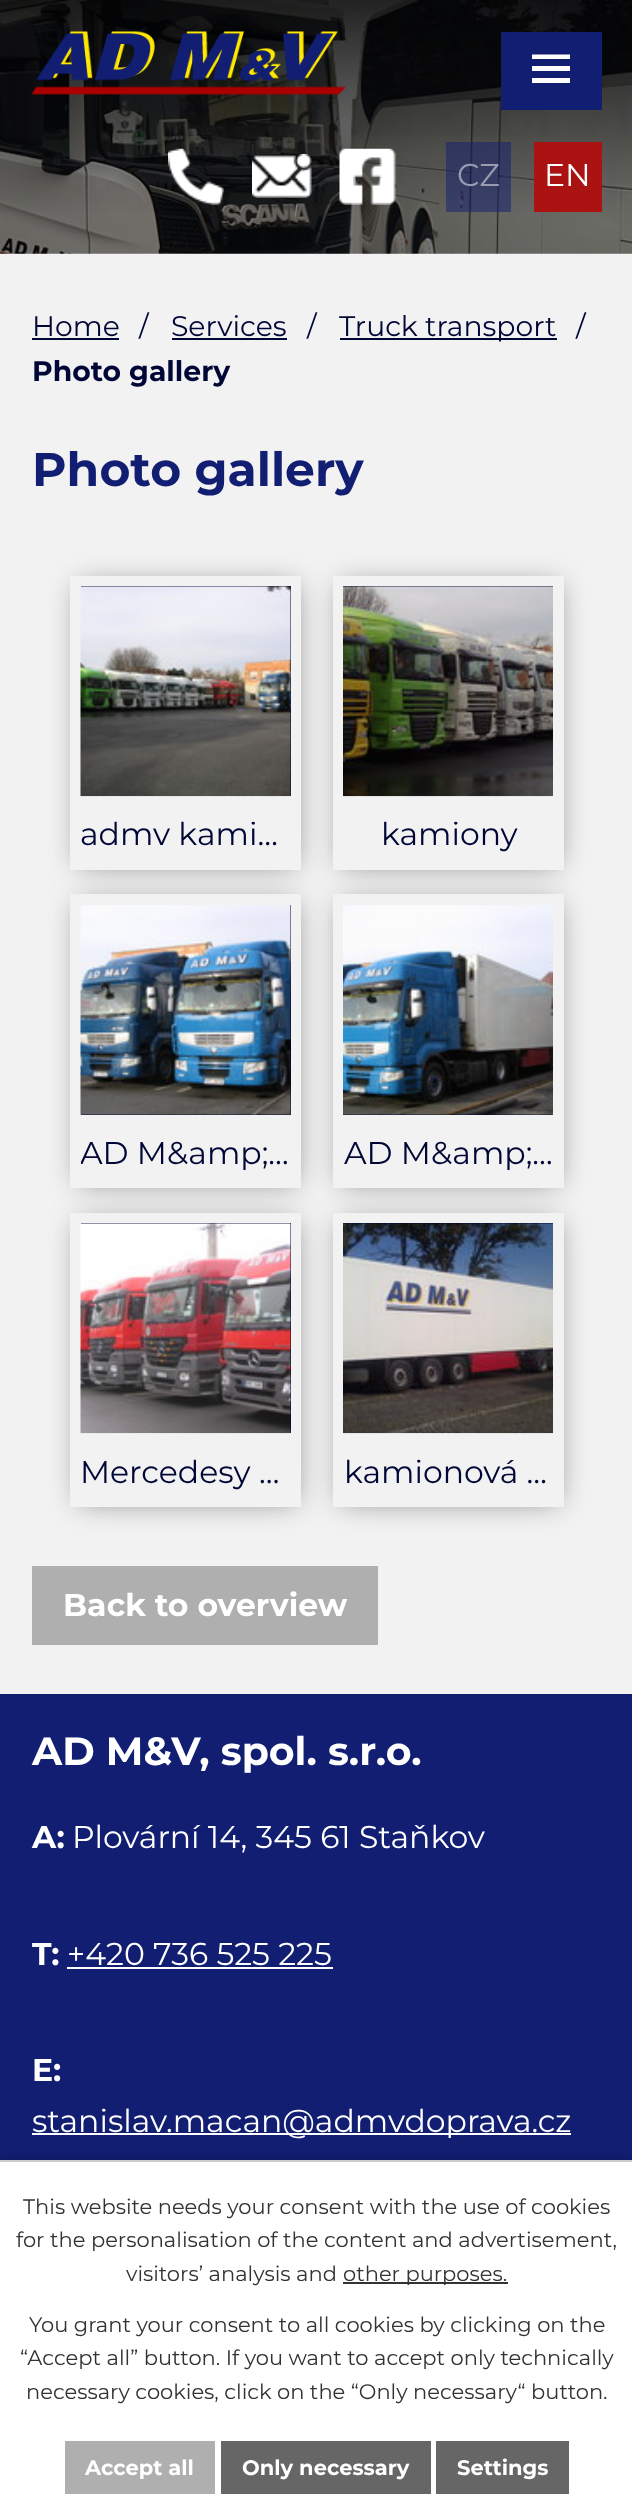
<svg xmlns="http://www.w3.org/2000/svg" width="632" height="2519">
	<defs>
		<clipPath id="clip1"><path d="M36 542H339V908H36ZM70 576H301V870H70Z" clip-rule="evenodd" /></clipPath>
		<clipPath id="clip2"><path d="M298 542H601V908H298ZM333 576H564V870H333Z" clip-rule="evenodd" /></clipPath>
		<clipPath id="clip3"><path d="M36 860H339V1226H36ZM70 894H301V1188H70Z" clip-rule="evenodd" /></clipPath>
		<clipPath id="clip4"><rect x="81" y="1115" width="210" height="63" /></clipPath>
		<clipPath id="clip5"><path d="M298 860H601V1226H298ZM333 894H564V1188H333Z" clip-rule="evenodd" /></clipPath>
		<clipPath id="clip6"><path d="M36 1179H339V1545H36ZM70 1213H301V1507H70Z" clip-rule="evenodd" /></clipPath>
		<clipPath id="clip7"><path d="M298 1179H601V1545H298ZM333 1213H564V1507H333Z" clip-rule="evenodd" /></clipPath>
	</defs>
	<rect width="100%" height="100%" fill="#F2F2F2" />
	<image x="0" y="0" width="632" height="254" href="assets/img1.png" />
	<rect x="501" y="32" width="101" height="78" fill="#111E72" />
	<path d="M532 83V78H570V83ZM532 54.5H570V59H532ZM532 71V66H570V71Z" fill="#FFFFFF" />
	<image x="31" y="31" width="315" height="64" href="assets/img2.png" />
	<image x="168" y="148" width="56" height="57" href="assets/img3.png" />
	<image x="252" y="154" width="60" height="44" href="assets/img4.png" />
	<image x="339" y="148" width="57" height="57" href="assets/img5.png" />
	<rect x="446" y="142" width="65" height="70" fill="#111E72" fill-opacity="0.5" />
	<text x="457" y="186" font-family="Montserrat" font-size="31.5" fill="#999CB0">CZ</text>
	<rect x="534" y="142" width="68" height="70" fill="#AA1312" />
	<text x="544" y="186" font-family="Montserrat" font-size="31.5" fill="#FFFFFF">EN</text>
	<text x="32" y="336" font-family="Montserrat" font-size="28.25" fill="#000736">Home</text>
	<rect x="32" y="338" width="87" height="2" fill="#000736" />
	<g font-family="Montserrat" font-size="28.25" fill="#000736">
		<text x="139" y="336">/</text>
		<text x="171" y="336">Services</text>
	</g>
	<rect x="172" y="338" width="115" height="2" fill="#000736" />
	<text x="307" y="336" font-family="Montserrat" font-size="28.25" fill="#000736">/</text>
	<rect x="340" y="338" width="217" height="2" fill="#000736" />
	<g font-family="Montserrat" font-size="28.25" fill="#000736">
		<text x="339" y="336">Truck transport</text>
		<text x="576" y="336">/</text>
	</g>
	<text x="32" y="381" font-family="Montserrat" font-size="28.25" font-weight="700" fill="#000736">Photo gallery</text>
	<text x="32" y="486" font-family="Montserrat" font-size="47.25" font-weight="700" fill="#111E72">Photo gallery</text>
	<g clip-path="url(#clip1)">
		<rect x="79" y="585" width="217" height="280" fill="#888888" filter="blur(14px)" />
	</g>
	<rect x="81" y="586" width="210" height="210" fill="#000736" />
	<image x="80" y="586" width="211" height="211" href="assets/img6.png" />
	<text x="80" y="845" font-family="Montserrat" font-size="31.5" fill="#000736">admv kami…</text>
	<g clip-path="url(#clip2)">
		<rect x="341" y="585" width="217" height="280" fill="#888888" filter="blur(14px)" />
	</g>
	<rect x="343" y="586" width="210" height="1" fill="#000736" />
	<image x="343" y="586" width="210" height="211" href="assets/img7.png" />
	<text x="381" y="845" font-family="Montserrat" font-size="31.5" fill="#000736">kamiony</text>
	<g clip-path="url(#clip3)">
		<rect x="79" y="903" width="217" height="280" fill="#888888" filter="blur(14px)" />
	</g>
	<rect x="81" y="905" width="210" height="210" fill="#000736" />
	<image x="80" y="905" width="211" height="210" href="assets/img8.png" />
	<g clip-path="url(#clip4)">
		<text x="80" y="1164" font-family="Montserrat" font-size="31.5" fill="#000736">AD M&amp;amp;…</text>
	</g>
	<g clip-path="url(#clip5)">
		<rect x="341" y="903" width="217" height="280" fill="#888888" filter="blur(14px)" />
	</g>
	<rect x="343" y="1114" width="210" height="1" fill="#000736" />
	<image x="343" y="905" width="210" height="210" href="assets/img9.png" />
	<text x="344" y="1164" font-family="Montserrat" font-size="31.5" fill="#000736">AD M&amp;amp;…</text>
	<g clip-path="url(#clip6)">
		<rect x="79" y="1222" width="217" height="280" fill="#888888" filter="blur(14px)" />
	</g>
	<rect x="81" y="1223" width="210" height="210" fill="#000736" />
	<image x="80" y="1223" width="211" height="211" href="assets/img10.png" />
	<text x="80" y="1483" font-family="Montserrat" font-size="31.5" fill="#000736">Mercedesy …</text>
	<g clip-path="url(#clip7)">
		<rect x="341" y="1222" width="217" height="280" fill="#888888" filter="blur(14px)" />
	</g>
	<rect x="343" y="1223" width="210" height="1" fill="#000736" />
	<image x="343" y="1223" width="210" height="211" href="assets/img11.png" />
	<text x="344" y="1483" font-family="Montserrat" font-size="31.5" fill="#000736">kamionová …</text>
	<rect x="32" y="1566" width="346" height="79" fill="#AFAFAF" />
	<text x="63" y="1616" font-family="Montserrat" font-size="31.5" font-weight="700" fill="#FFFFFF">Back to overview</text>
	<rect x="0" y="1694" width="632" height="466" fill="#111E72" />
	<text x="32" y="1765" font-family="Montserrat" font-size="39.4" font-weight="700" fill="#FFFFFF">AD M&amp;V, spol. s.r.o.</text>
	<text x="32" y="1848" font-family="Montserrat" font-size="31.5" font-weight="700" fill="#FFFFFF">A:</text>
	<text x="72" y="1848" font-family="Montserrat" font-size="31.5" fill="#FFFFFF">Plovární 14, 345 61 Staňkov</text>
	<text x="32" y="1965" font-family="Montserrat" font-size="31.5" font-weight="700" fill="#FFFFFF">T:</text>
	<text x="67" y="1965" font-family="Montserrat" font-size="31.5" fill="#FFFFFF">+420 736 525 225</text>
	<rect x="67" y="1967" width="266" height="2" fill="#FFFFFF" />
	<text x="32" y="2081" font-family="Montserrat" font-size="31.5" font-weight="700" fill="#FFFFFF">E:</text>
	<rect x="32" y="2133" width="539" height="2" fill="#FFFFFF" />
	<text x="32" y="2132" font-family="Montserrat" font-size="31.5" fill="#FFFFFF">stanislav.macan@admvdoprava.cz</text>
	<rect x="0" y="2160" width="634" height="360" fill="#000000" fill-opacity="0.2" filter="blur(4.5px)" />
	<rect x="0" y="2162" width="632" height="357" fill="#FFFFFF" />
	<rect x="0" y="2160" width="632" height="2" fill="#CCCCCC" />
	<g font-family="Montserrat" font-size="21" fill="#333333">
		<text x="23" y="2214">This website needs your consent with the use of cookies</text>
		<text x="16" y="2247">for the personalisation of the content and advertisement,</text>
		<text x="126" y="2281">visitors’ analysis and</text>
	</g>
	<rect x="343" y="2282" width="165" height="2" fill="#333333" />
	<g font-family="Montserrat" font-size="21" fill="#333333">
		<text x="343" y="2281">other purposes.</text>
		<text x="29" y="2332">You grant your consent to all cookies by clicking on the</text>
		<text x="20" y="2365">“Accept all” button. If you want to accept only technically</text>
		<text x="26" y="2399">necessary cookies, click on the “Only necessary“ button.</text>
	</g>
	<rect x="65" y="2441" width="150" height="53" fill="#AFAFAF" />
	<text x="85" y="2475" font-family="Montserrat" font-size="21" font-weight="700" fill="#FFFFFF">Accept all</text>
	<rect x="221" y="2441" width="210" height="53" fill="#666666" />
	<text x="242" y="2475" font-family="Montserrat" font-size="21" font-weight="700" fill="#FFFFFF">Only necessary</text>
	<rect x="436" y="2441" width="133" height="53" fill="#666666" />
	<text x="457" y="2475" font-family="Montserrat" font-size="21" font-weight="700" fill="#FFFFFF">Settings</text>
</svg>
